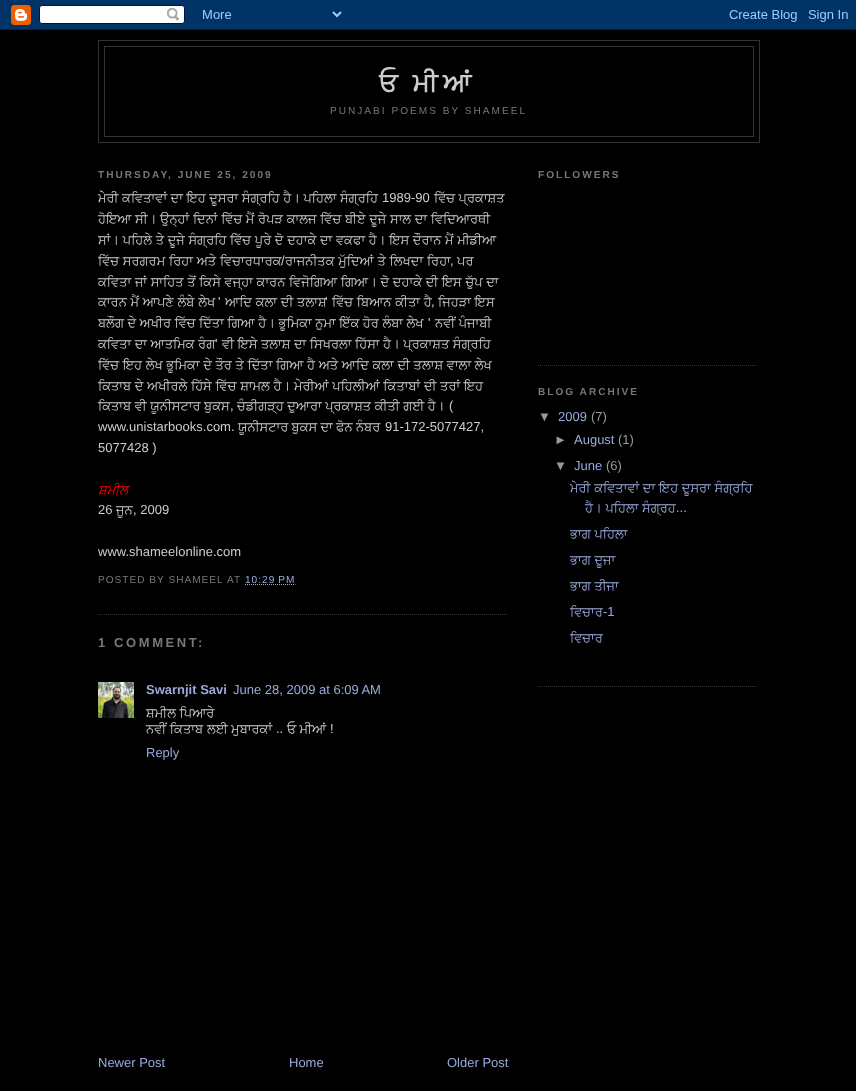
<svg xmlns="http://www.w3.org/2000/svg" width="856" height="1091">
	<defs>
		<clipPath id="clip1"><rect x="98" y="153" width="410" height="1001" /></clipPath>
	</defs>
	<rect width="100%" height="100%" fill="#000000" />
	<image x="0" y="0" width="856" height="30" href="assets/img1.png" />
	<rect x="98.5" y="40.5" width="661" height="102" fill="none" stroke="#333333" />
	<rect x="104.5" y="46.5" width="649" height="90" fill="none" stroke="#333333" />
	<text x="379" y="91" word-spacing="-2" font-family="FreeSans" font-size="26" font-weight="700" letter-spacing="5.25" fill="#CCCCCC">ਓ ਮੀਆਂ</text>
	<text x="330" y="114" font-family="Liberation Sans" font-size="10.1" letter-spacing="2" fill="#777777">PUNJABI POEMS BY SHAMEEL</text>
	<text x="98" y="178" font-family="Liberation Sans" font-size="10.1" font-weight="700" letter-spacing="2" fill="#777777">THURSDAY, JUNE 25, 2009</text>
	<path d="M98 614.5H508" fill="none" stroke="#333333" stroke-dasharray="1 1" />
	<g clip-path="url(#clip1)">
		<text x="98" y="202" word-spacing="0.25" font-family="FreeSans" font-size="13" fill="#CCCCCC">ਮੇਰੀ ਕਵਿਤਾਵਾਂ ਦਾ ਇਹ ਦੂਸਰਾ ਸੰਗ੍ਰਹਿ ਹੈ। ਪਹਿਲਾ ਸੰਗ੍ਰਹਿ</text>
	</g>
	<text x="382" y="202" font-family="Liberation Sans" font-size="13" fill="#CCCCCC">1989-90</text>
	<text x="434" y="202" word-spacing="0.25" font-family="FreeSans" font-size="13" fill="#CCCCCC">ਵਿੱਚ ਪ੍ਰਕਾਸ਼ਤ</text>
	<g clip-path="url(#clip1)">
		<text x="98" y="223" word-spacing="0.4" font-family="FreeSans" font-size="13" fill="#CCCCCC">ਹੋਇਆ ਸੀ। ਉਨ੍ਹਾਂ ਦਿਨਾਂ ਵਿੱਚ ਮੈਂ ਰੋਪੜ ਕਾਲਜ ਵਿੱਚ ਬੀਏ ਦੂਜੇ ਸਾਲ ਦਾ ਵਿਦਿਆਰਥੀ</text>
	</g>
	<text x="98" y="244" word-spacing="0.4" font-family="FreeSans" font-size="13" fill="#CCCCCC">ਸਾਂ। ਪਹਿਲੇ ਤੇ ਦੂਜੇ ਸੰਗ੍ਰਹਿ ਵਿੱਚ ਪੂਰੇ ਦੋ ਦਹਾਕੇ ਦਾ ਵਕਫਾ ਹੈ। ਇਸ ਦੌਰਾਨ ਮੈਂ ਮੀਡੀਆ</text>
	<g clip-path="url(#clip1)">
		<text x="98" y="265" word-spacing="0.5" font-family="FreeSans" font-size="13" fill="#CCCCCC">ਵਿੱਚ ਸਰਗਰਮ ਰਿਹਾ ਅਤੇ ਵਿਚਾਰਧਾਰਕ</text>
	</g>
	<text x="281" y="265" font-family="Liberation Sans" font-size="13" fill="#CCCCCC">/</text>
	<text x="285" y="265" word-spacing="0.5" font-family="FreeSans" font-size="13" fill="#CCCCCC">ਰਾਜਨੀਤਕ ਮੁੱਦਿਆਂ ਤੇ ਲਿਖਦਾ ਰਿਹਾ</text>
	<text x="450" y="265" font-family="Liberation Sans" font-size="13" fill="#CCCCCC">,</text>
	<g font-family="FreeSans" font-size="13" fill="#CCCCCC">
		<text x="457" y="265">ਪਰ</text>
		<text x="98" y="286" word-spacing="0.4">ਕਵਿਤਾ ਜਾਂ ਸਾਹਿਤ ਤੋਂ ਕਿਸੇ ਵਜ੍ਹਾ ਕਾਰਨ ਵਿਜੋਗਿਆ ਗਿਆ। ਦੋ ਦਹਾਕੇ ਦੀ ਇਸ ਚੁੱਪ ਦਾ</text>
		<text x="98" y="306" word-spacing="0.5">ਕਾਰਨ ਮੈਂ ਆਪਣੇ ਲੰਬੇ ਲੇਖ</text>
	</g>
	<text x="218" y="306" font-family="Liberation Sans" font-size="13" fill="#CCCCCC">'</text>
	<text x="225" y="306" word-spacing="0.5" font-family="FreeSans" font-size="13" fill="#CCCCCC">ਆਦਿ ਕਲਾ ਦੀ ਤਲਾਸ਼</text>
	<text x="325" y="306" font-family="Liberation Sans" font-size="13" fill="#CCCCCC">'</text>
	<g font-family="FreeSans" font-size="13" fill="#CCCCCC">
		<text x="332" y="306" word-spacing="0.5">ਵਿੱਚ ਬਿਆਨ ਕੀਤਾ ਹੈ</text>
		<text x="438" y="306" word-spacing="0.5">ਜਿਹੜਾ ਇਸ</text>
	</g>
	<text x="431" y="306" font-family="Liberation Sans" font-size="13" fill="#CCCCCC">,</text>
	<text x="98" y="327" word-spacing="0.25" font-family="FreeSans" font-size="13" fill="#CCCCCC">ਬਲੌਗ ਦੇ ਅਖੀਰ ਵਿੱਚ ਦਿੱਤਾ ਗਿਆ ਹੈ। ਭੂਮਿਕਾ ਨੁਮਾ ਇੱਕ ਹੋਰ ਲੰਬਾ ਲੇਖ</text>
	<text x="428" y="327" font-family="Liberation Sans" font-size="13" fill="#CCCCCC">'</text>
	<g font-family="FreeSans" font-size="13" fill="#CCCCCC">
		<text x="435" y="327" word-spacing="0.25">ਨਵੀਂ ਪੰਜਾਬੀ</text>
		<text x="98" y="348" word-spacing="0.25">ਕਵਿਤਾ ਦਾ ਆਤਮਿਕ ਰੰਗ</text>
	</g>
	<text x="215" y="348" font-family="Liberation Sans" font-size="13" fill="#CCCCCC">'</text>
	<text x="222" y="348" word-spacing="0.25" font-family="FreeSans" font-size="13" fill="#CCCCCC">ਵੀ ਇਸੇ ਤਲਾਸ਼ ਦਾ ਸਿਖਰਲਾ ਹਿੱਸਾ ਹੈ। ਪ੍ਰਕਾਸ਼ਤ ਸੰਗ੍ਰਹਿ</text>
	<g clip-path="url(#clip1)">
		<text x="98" y="369" word-spacing="0.4" font-family="FreeSans" font-size="13" fill="#CCCCCC">ਵਿੱਚ ਇਹ ਲੇਖ ਭੂਮਿਕਾ ਦੇ ਤੌਰ ਤੇ ਦਿੱਤਾ ਗਿਆ ਹੈ ਅਤੇ ਆਦਿ ਕਲਾ ਦੀ ਤਲਾਸ਼ ਵਾਲਾ ਲੇਖ</text>
	</g>
	<g font-family="FreeSans" font-size="13" fill="#CCCCCC">
		<text x="98" y="390" word-spacing="0.4">ਕਿਤਾਬ ਦੇ ਅਖੀਰਲੇ ਹਿੱਸੇ ਵਿੱਚ ਸ਼ਾਮਲ ਹੈ। ਮੇਰੀਆਂ ਪਹਿਲੀਆਂ ਕਿਤਾਬਾਂ ਦੀ ਤਰਾਂ ਇਹ</text>
		<text x="98" y="410" word-spacing="0.25">ਕਿਤਾਬ ਵੀ ਯੂਨੀਸਟਾਰ ਬੁਕਸ</text>
	</g>
	<text x="230" y="410" font-family="Liberation Sans" font-size="13" fill="#CCCCCC">,</text>
	<text x="237" y="410" word-spacing="0.25" font-family="FreeSans" font-size="13" fill="#CCCCCC">ਚੰਡੀਗੜ੍ਹ ਦੁਆਰਾ ਪ੍ਰਕਾਸ਼ਤ ਕੀਤੀ ਗਈ ਹੈ।</text>
	<g font-family="Liberation Sans" font-size="13" fill="#CCCCCC">
		<text x="449" y="410">(</text>
		<text x="98" y="431">www.unistarbooks.com.</text>
	</g>
	<text x="238" y="431" font-family="FreeSans" font-size="13" fill="#CCCCCC">ਯੂਨੀਸਟਾਰ ਬੁਕਸ ਦਾ ਫੋਨ ਨੰਬਰ</text>
	<g font-family="Liberation Sans" font-size="13" fill="#CCCCCC">
		<text x="385" y="431">91-172-5077427,</text>
		<text x="98" y="452">5077428 )</text>
	</g>
	<text x="98" y="494" font-family="FreeSans" font-size="13" font-style="italic" fill="#FF0000">ਸ਼ਮੀਲ</text>
	<text x="98" y="514" font-family="Liberation Sans" font-size="13" fill="#CCCCCC">26</text>
	<text x="116" y="514" font-family="FreeSans" font-size="13" fill="#CCCCCC">ਜੂਨ</text>
	<g font-family="Liberation Sans" font-size="13" fill="#CCCCCC">
		<text x="133" y="514">, 2009</text>
		<text x="98" y="556">www.shameelonline.com</text>
	</g>
	<g font-family="Liberation Sans" font-size="10.1" letter-spacing="1" fill="#777777">
		<text x="98" y="583">POSTED BY SHAMEEL</text>
		<text x="227" y="583">AT</text>
	</g>
	<text x="245" y="583" font-family="Liberation Sans" font-size="10.1" letter-spacing="1" fill="#99AADD">10:29 PM</text>
	<path d="M245 584.5H295.5" fill="none" stroke="#99AADD" stroke-dasharray="1 1" />
	<text x="98" y="647" font-family="Liberation Sans" font-size="13" font-weight="700" letter-spacing="2.6" fill="#777777">1 COMMENT:</text>
	<image x="98" y="682" width="36" height="36" href="assets/img2.png" />
	<text x="146" y="694" font-family="Liberation Sans" font-size="13" font-weight="700" fill="#99AADD">Swarnjit Savi</text>
	<text x="233" y="694" font-family="Liberation Sans" font-size="13" fill="#99AADD">June 28, 2009 at 6:09 AM</text>
	<g font-family="FreeSans" font-size="13" fill="#CCCCCC">
		<text x="146" y="717" word-spacing="0.4">ਸ਼ਮੀਲ ਪਿਆਰੇ</text>
		<text x="146" y="733" word-spacing="0.4">ਨਵੀਂ ਕਿਤਾਬ</text>
		<text x="207" y="733">ਲਈ ਮੁਬਾਰਕਾਂ</text>
	</g>
	<text x="276" y="733" font-family="Liberation Sans" font-size="13" fill="#CCCCCC">..</text>
	<text x="287" y="733" font-family="FreeSans" font-size="13" fill="#CCCCCC">ਓ ਮੀਆਂ</text>
	<text x="330" y="733" font-family="Liberation Sans" font-size="13" fill="#CCCCCC">!</text>
	<g font-family="Liberation Sans" font-size="13" fill="#99AADD">
		<text x="146" y="757">Reply</text>
		<text x="98" y="1067">Newer Post</text>
		<text x="289" y="1067">Home</text>
		<text x="447" y="1067">Older Post</text>
	</g>
	<path d="M538 365.5H758" fill="none" stroke="#333333" stroke-dasharray="1 1" />
	<text x="538" y="178" font-family="Liberation Sans" font-size="10.1" font-weight="700" letter-spacing="2" fill="#777777">FOLLOWERS</text>
	<path d="M538 686.5H758" fill="none" stroke="#333333" stroke-dasharray="1 1" />
	<text x="538" y="395" font-family="Liberation Sans" font-size="10.1" font-weight="700" letter-spacing="2" fill="#777777">BLOG ARCHIVE</text>
	<text x="538" y="421" font-family="Liberation Sans" font-size="13" fill="#999999">▼</text>
	<text x="558" y="421" font-family="Liberation Sans" font-size="13" fill="#99AADD">2009</text>
	<g font-family="Liberation Sans" font-size="13" fill="#999999">
		<text x="591" y="421">(7)</text>
		<text x="554" y="444">►</text>
	</g>
	<text x="574" y="444" font-family="Liberation Sans" font-size="13" fill="#99AADD">August</text>
	<g font-family="Liberation Sans" font-size="13" fill="#999999">
		<text x="618" y="444">(1)</text>
		<text x="554" y="470">▼</text>
	</g>
	<text x="574" y="470" font-family="Liberation Sans" font-size="13" fill="#99AADD">June</text>
	<text x="606" y="470" font-family="Liberation Sans" font-size="13" fill="#999999">(6)</text>
	<g font-family="FreeSans" font-size="13" fill="#99AADD">
		<text x="570" y="492" word-spacing="0.4">ਮੇਰੀ ਕਵਿਤਾਵਾਂ ਦਾ ਇਹ ਦੂਸਰਾ ਸੰਗ੍ਰਹਿ</text>
		<text x="585" y="512" word-spacing="0.4">ਹੈ। ਪਹਿਲਾ ਸੰਗ੍ਰਹ</text>
	</g>
	<text x="676" y="512" font-family="Liberation Sans" font-size="13" fill="#99AADD">...</text>
	<g font-family="FreeSans" font-size="13" fill="#99AADD">
		<text x="570" y="538" word-spacing="0.4">ਭਾਗ ਪਹਿਲਾ</text>
		<text x="570" y="564" word-spacing="0.4">ਭਾਗ ਦੂਜਾ</text>
		<text x="570" y="590" word-spacing="0.4">ਭਾਗ ਤੀਜਾ</text>
		<text x="570" y="616">ਵਿਚਾਰ</text>
	</g>
	<text x="603" y="616" font-family="Liberation Sans" font-size="13" fill="#99AADD">-1</text>
	<text x="570" y="642" font-family="FreeSans" font-size="13" fill="#99AADD">ਵਿਚਾਰ</text>
</svg>
